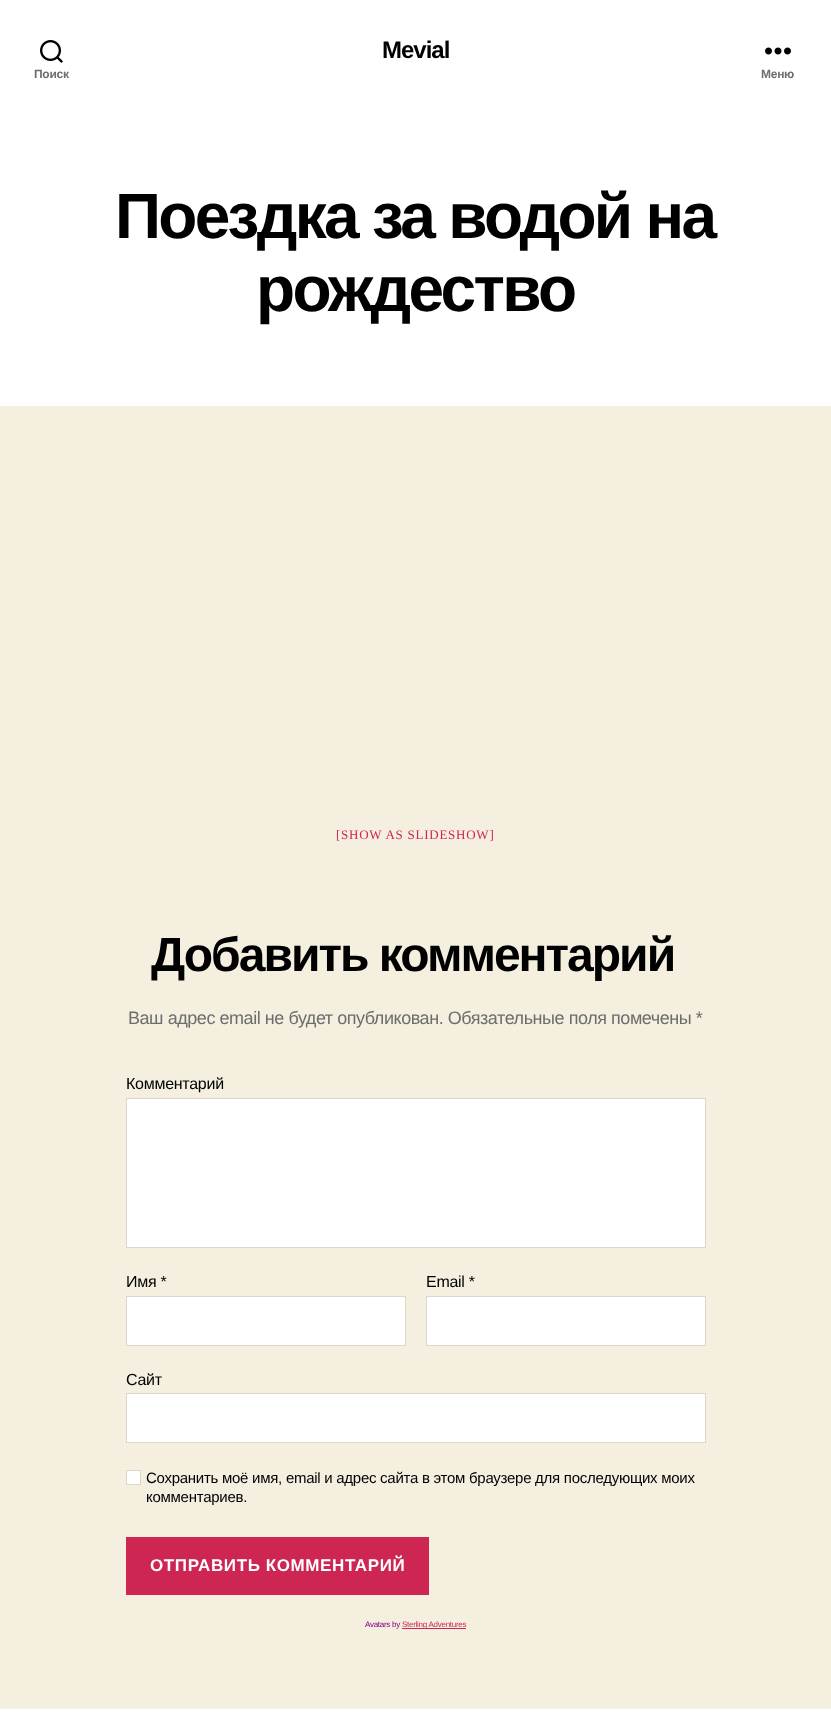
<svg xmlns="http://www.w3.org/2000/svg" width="831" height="1736">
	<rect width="100%" height="100%" fill="#F5EFE0" />
	<rect x="0" y="0" width="831" height="406" fill="#FFFFFF" />
	<text x="382" y="58" font-family="Liberation Sans" font-size="24" font-weight="700" letter-spacing="-1" fill="#000000">Mevial</text>
	<image x="40" y="40" width="23" height="23" href="assets/img1.png" />
	<text x="34" y="78" font-family="Liberation Sans" font-size="12" font-weight="700" letter-spacing="-0.27" fill="#6D6D6D">Поиск</text>
	<image x="765" y="47" width="26" height="8" href="assets/img2.png" />
	<text x="761" y="78" font-family="Liberation Sans" font-size="12" font-weight="700" letter-spacing="-0.27" fill="#6D6D6D">Меню</text>
	<g font-family="Liberation Sans" font-size="64" font-weight="700" letter-spacing="-2.7" fill="#000000">
		<text x="115" y="238">Поездка за водой на</text>
		<text x="256" y="311">рождество</text>
	</g>
	<text x="336" y="839" font-family="Liberation Serif" font-size="13" letter-spacing="0.75" fill="#CD2653">[SHOW AS SLIDESHOW]</text>
	<text x="151" y="971" font-family="Liberation Sans" font-size="48" font-weight="700" letter-spacing="-2" fill="#000000">Добавить комментарий</text>
	<text x="128" y="1024" font-family="Liberation Sans" font-size="18" letter-spacing="-0.45" fill="#6D6D6D">Ваш адрес email не будет опубликован. Обязательные поля помечены *</text>
	<text x="126" y="1089" font-family="Liberation Sans" font-size="16" letter-spacing="-0.27" fill="#000000">Комментарий</text>
	<rect x="126.5" y="1098.5" width="579" height="149" fill="#FFFFFF" stroke="#DCD7CA" />
	<text x="126" y="1287" font-family="Liberation Sans" font-size="16" letter-spacing="-0.27" fill="#000000">Имя *</text>
	<rect x="126.5" y="1296.5" width="279" height="49" fill="#FFFFFF" stroke="#DCD7CA" />
	<text x="426" y="1287" font-family="Liberation Sans" font-size="16" letter-spacing="-0.27" fill="#000000">Email *</text>
	<rect x="426.5" y="1296.5" width="279" height="49" fill="#FFFFFF" stroke="#DCD7CA" />
	<text x="126" y="1385" font-family="Liberation Sans" font-size="16" letter-spacing="-0.27" fill="#000000">Сайт</text>
	<rect x="126.5" y="1393.5" width="579" height="49" fill="#FFFFFF" stroke="#DCD7CA" />
	<rect x="126.5" y="1470.5" width="14" height="14" fill="#FFFFFF" stroke="#DCD7CA" />
	<g font-family="Liberation Sans" font-size="15" letter-spacing="-0.27" fill="#000000">
		<text x="146" y="1483">Сохранить моё имя, email и адрес сайта в этом браузере для последующих моих</text>
		<text x="146" y="1502">комментариев.</text>
	</g>
	<rect x="126" y="1537" width="303" height="58" fill="#CD2653" />
	<text x="150" y="1571" font-family="Liberation Sans" font-size="17" font-weight="700" letter-spacing="0.6" fill="#FFFFFF">ОТПРАВИТЬ КОММЕНТАРИЙ</text>
	<text x="365" y="1627" font-family="Liberation Sans" font-size="8" letter-spacing="-0.27" fill="#800080">Avatars by</text>
	<rect x="402" y="1628" width="64" height="1" fill="#CD2653" />
	<text x="402" y="1627" font-family="Liberation Sans" font-size="8" letter-spacing="-0.27" fill="#CD2653">Sterling Adventures</text>
	<rect x="0" y="1709" width="831" height="27" fill="#FFFFFF" />
</svg>
